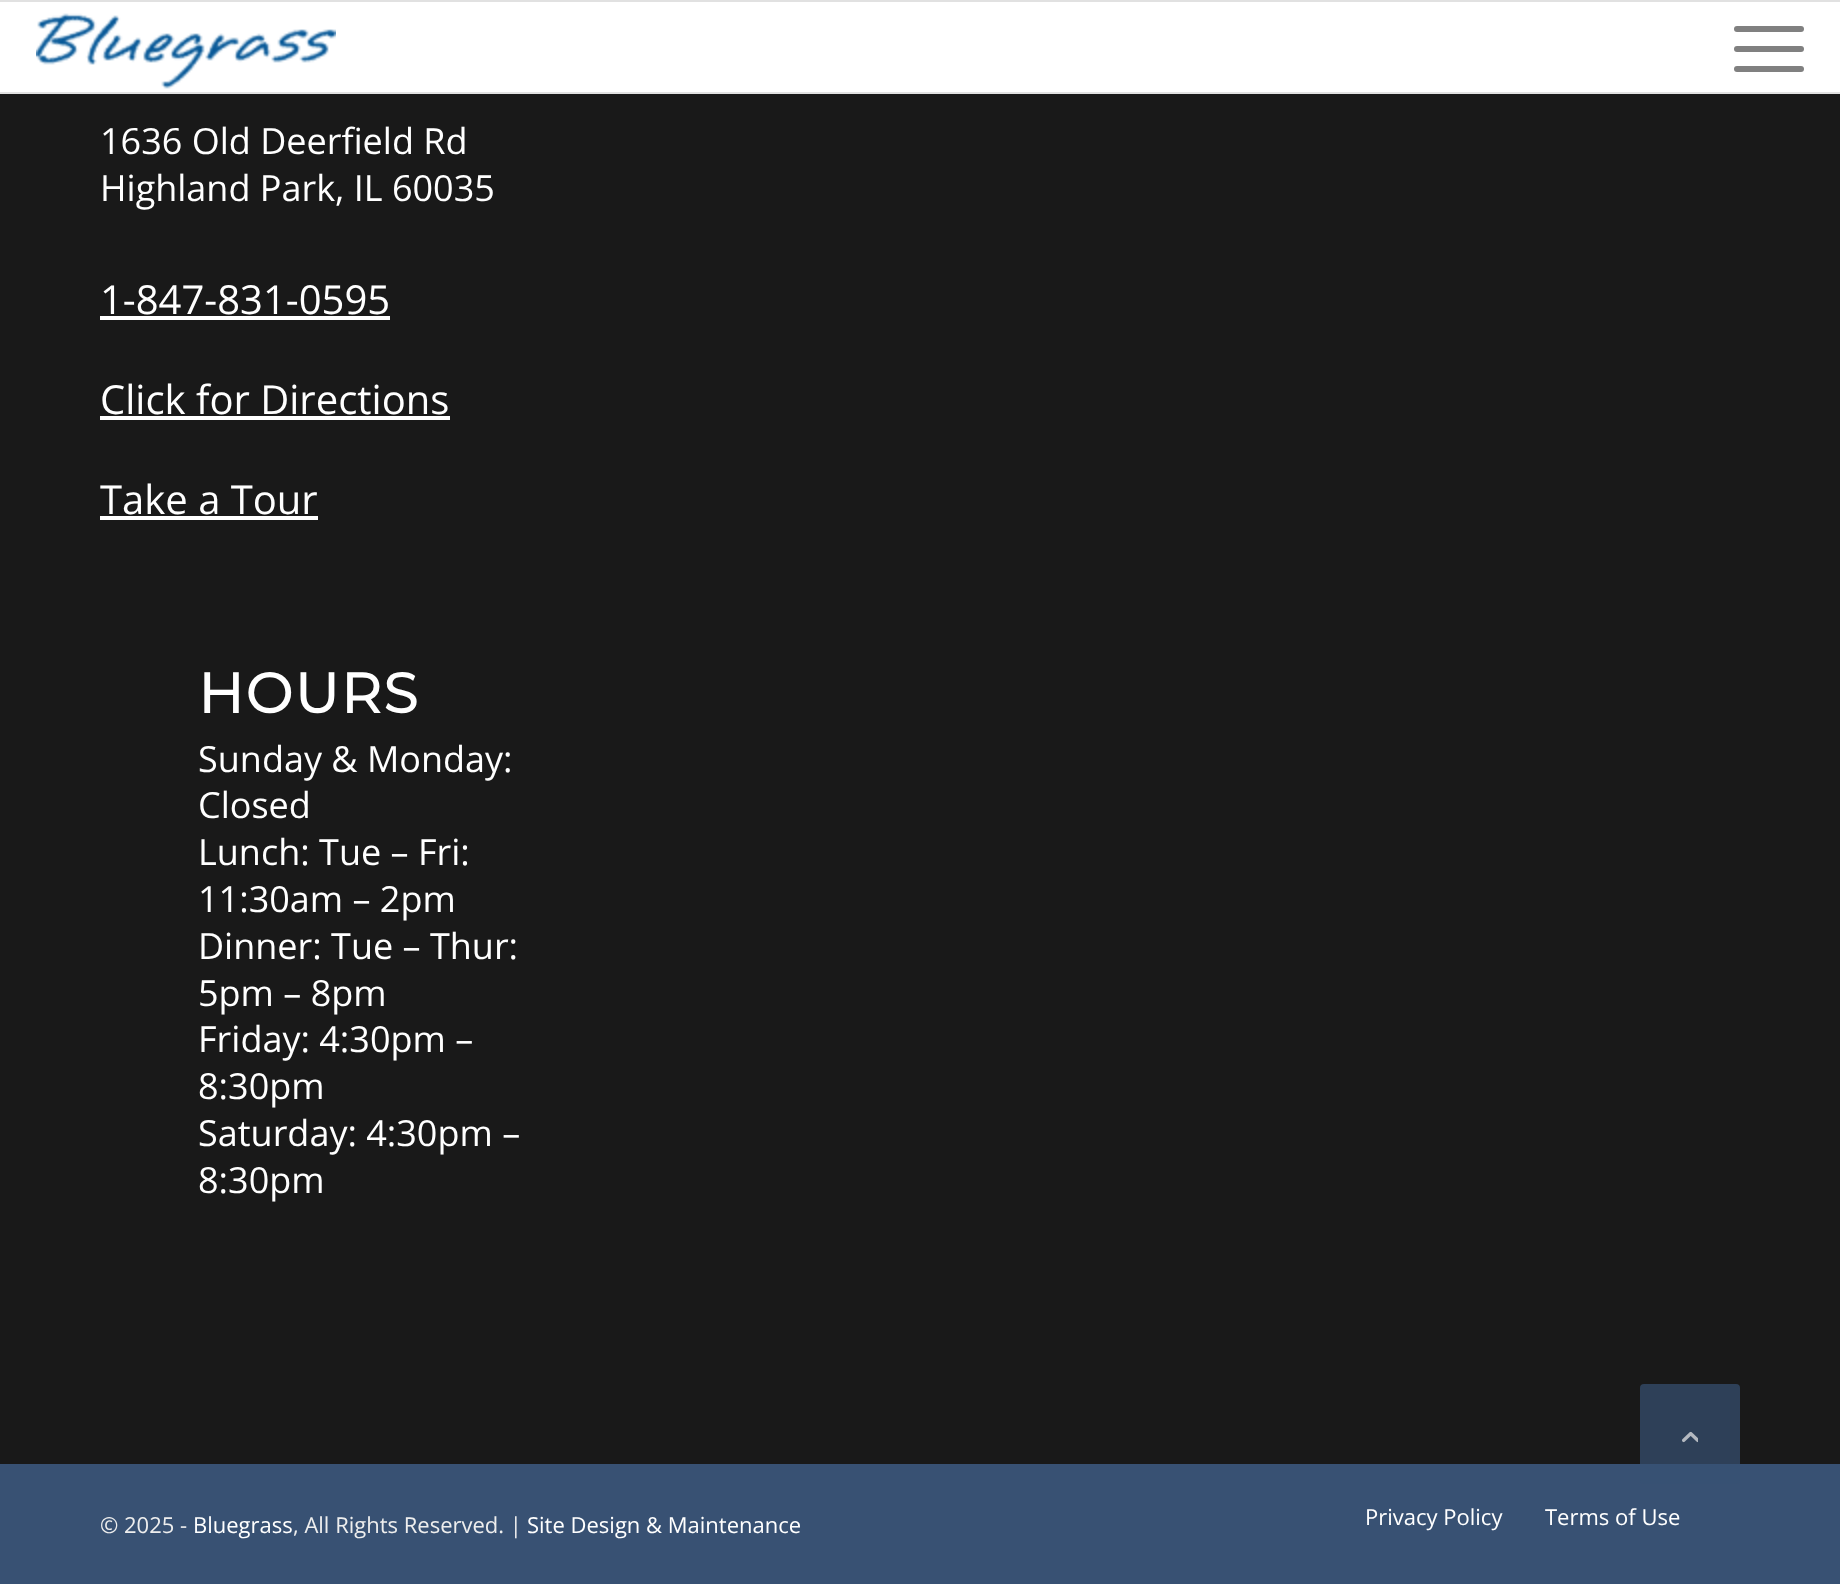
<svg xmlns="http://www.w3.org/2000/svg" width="1840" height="1584">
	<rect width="100%" height="100%" fill="#191919" />
	<rect x="0" y="0" width="1840" height="2" fill="#E1E1E1" />
	<rect x="0" y="92" width="1840" height="2" fill="#E1E1E1" />
	<rect x="0" y="2" width="1840" height="90" fill="#FFFFFF" />
	<image x="36" y="13" width="300" height="76" href="assets/img1.png" />
	<rect x="1734" y="46" width="70" height="6" rx="3" fill="#808080" />
	<rect x="1734" y="26" width="70" height="6" rx="3" fill="#808080" />
	<rect x="1734" y="66" width="70" height="6" rx="3" fill="#808080" />
	<g font-family="Open Sans" font-size="36" fill="#FFFFFF">
		<text x="100" y="154">1636 Old Deerfield Rd</text>
		<text x="100" y="201">Highland Park, IL 60035</text>
	</g>
	<text x="100" y="314" font-family="Open Sans" font-size="40" fill="#FFFFFF">1-847-831-0595</text>
	<rect x="100" y="316" width="290" height="4" fill="#FFFFFF" />
	<text x="100" y="414" font-family="Open Sans" font-size="40" fill="#FFFFFF">Click for Directions</text>
	<rect x="100" y="416" width="350" height="4" fill="#FFFFFF" />
	<text x="100" y="514" font-family="Open Sans" font-size="40" fill="#FFFFFF">Take a Tour</text>
	<rect x="100" y="516" width="218" height="4" fill="#FFFFFF" />
	<text x="198" y="713" font-family="Montserrat" font-size="56" font-weight="700" letter-spacing="2" fill="#FFFFFF">HOURS</text>
	<g font-family="Open Sans" font-size="36" fill="#FFFFFF">
		<text x="198" y="772">Sunday &amp; Monday:</text>
		<text x="198" y="818">Closed</text>
		<text x="198" y="865">Lunch: Tue – Fri:</text>
		<text x="198" y="912">11:30am – 2pm</text>
		<text x="198" y="959">Dinner: Tue – Thur:</text>
		<text x="198" y="1006">5pm – 8pm</text>
		<text x="198" y="1052">Friday: 4:30pm –</text>
		<text x="198" y="1099">8:30pm</text>
		<text x="198" y="1146">Saturday: 4:30pm –</text>
		<text x="198" y="1193">8:30pm</text>
	</g>
	<rect x="0" y="1464" width="1840" height="120" fill="#385173" />
	<text x="100" y="1533" font-family="Open Sans" font-size="22" fill="#EEEEEE">© 2025 -</text>
	<text x="193" y="1533" font-family="Open Sans" font-size="22" fill="#FFFFFF">Bluegrass</text>
	<text x="293" y="1533" font-family="Open Sans" font-size="22" fill="#EEEEEE">, All Rights Reserved. |</text>
	<g font-family="Open Sans" font-size="22" fill="#FFFFFF">
		<text x="527" y="1533">Site Design &amp; Maintenance</text>
		<text x="1365" y="1525">Privacy Policy</text>
		<text x="1545" y="1525">Terms of Use</text>
	</g>
	<rect x="1640" y="1384" width="100" height="100" rx="4" fill="#385173" fill-opacity="0.7" />
	<image x="1682" y="1431" width="16" height="12" href="assets/img2.png" />
</svg>
